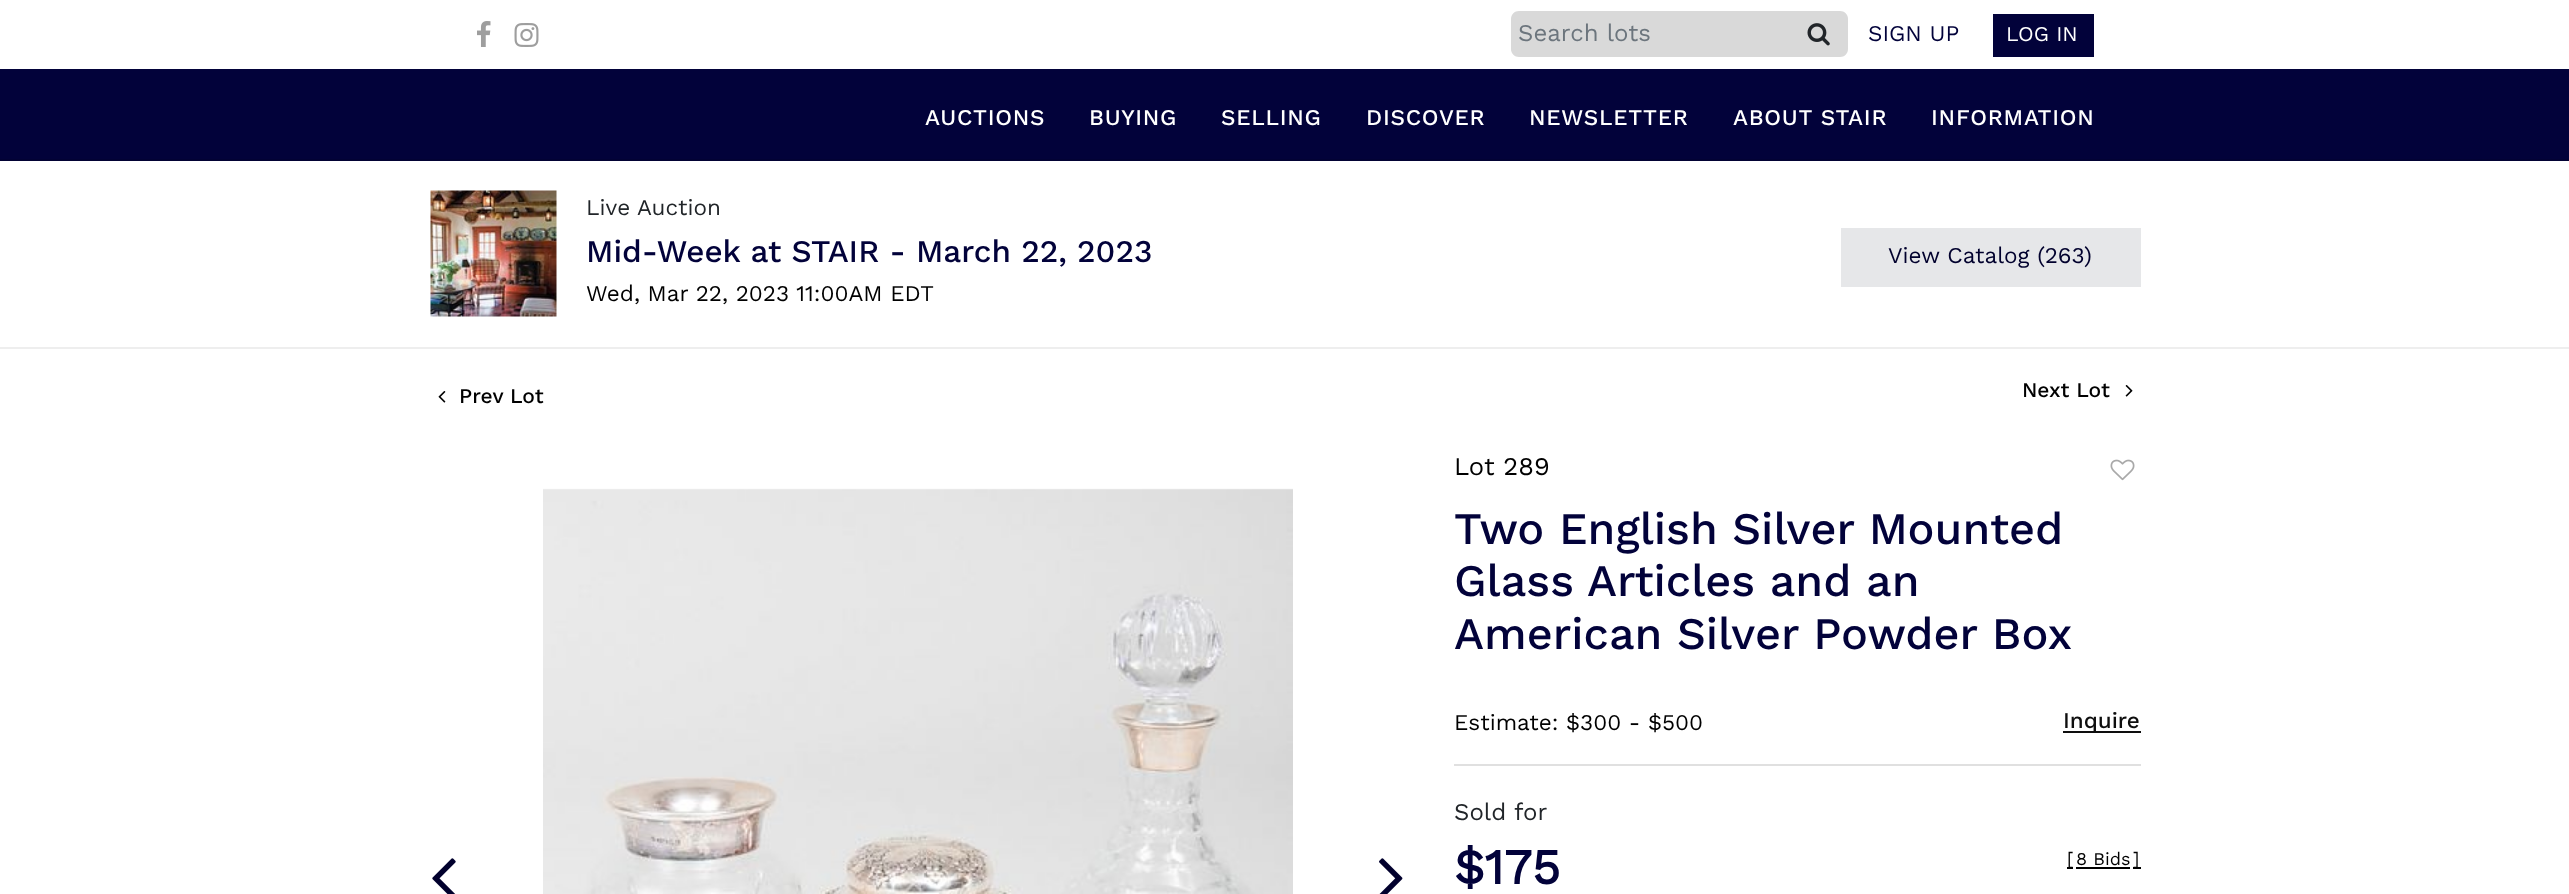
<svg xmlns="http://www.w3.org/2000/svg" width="2569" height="894">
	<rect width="100%" height="100%" fill="#FFFFFF" />
	<rect x="0" y="69" width="2569" height="90" fill="#02023A" />
	<rect x="0" y="159" width="2569" height="2" fill="#020234" />
	<image x="477" y="21" width="14" height="26" href="assets/img1.png" />
	<image x="514" y="23" width="25" height="24" href="assets/img2.png" />
	<path d="M1519 11H1791V57H1519C1514.5 57 1511 53.5 1511 49V19C1511 14.5 1514.5 11 1519 11Z" fill="#D9D9D9" />
	<text x="1518" y="41" font-family="Work Sans" font-size="24" fill="#6C757D">Search lots</text>
	<path d="M1790 11H1840C1844.5 11 1848 14.5 1848 19V49C1848 53.5 1844.5 57 1840 57H1790Z" fill="#D9D9D9" />
	<image x="1807" y="23" width="23" height="23" href="assets/img3.png" />
	<text x="1868" y="41" font-family="Work Sans" font-size="22.5" fill="#02023A">SIGN UP</text>
	<rect x="1993" y="14" width="101" height="43" fill="#02023A" />
	<text x="2006" y="41" font-family="Work Sans" font-size="21" fill="#FFFFFF">LOG IN</text>
	<g font-family="Work Sans" font-size="22.5" font-weight="500" letter-spacing="0.75" fill="#FFFFFF">
		<text x="925" y="125">AUCTIONS</text>
		<text x="1089" y="125">BUYING</text>
		<text x="1221" y="125">SELLING</text>
		<text x="1366" y="125">DISCOVER</text>
		<text x="1529" y="125">NEWSLETTER</text>
		<text x="1733" y="125">ABOUT STAIR</text>
		<text x="1931" y="125">INFORMATION</text>
	</g>
	<image x="430" y="190" width="127" height="127" href="assets/img4.png" />
	<text x="586" y="215" font-family="Work Sans" font-size="22.5" fill="#212529">Live Auction</text>
	<text x="586" y="262" font-family="Work Sans" font-size="31.5" font-weight="500" fill="#02023A">Mid-Week at STAIR - March 22, 2023</text>
	<text x="586" y="301" font-family="Work Sans" font-size="22.5" fill="#000000">Wed, Mar 22, 2023 11:00AM EDT</text>
	<rect x="1841" y="228" width="300" height="59" fill="#E6E7E9" />
	<text x="1888" y="263" font-family="Work Sans" font-size="22.5" fill="#01002D">View Catalog (263)</text>
	<rect x="0" y="347" width="2569" height="2" fill="#EEEEEE" />
	<image x="438" y="391" width="8" height="12" href="assets/img5.png" />
	<g font-family="Work Sans" font-size="21" font-weight="500" fill="#000000">
		<text x="459" y="403">Prev Lot</text>
		<text x="2022" y="397">Next Lot</text>
	</g>
	<image x="2125" y="385" width="8" height="12" href="assets/img6.png" />
	<image x="432" y="858" width="24" height="36" href="assets/img7.png" />
	<image x="543" y="488" width="750" height="406" href="assets/img8.png" />
	<image x="1379" y="858" width="24" height="36" href="assets/img9.png" />
	<text x="1454" y="475" font-family="Work Sans" font-size="25.5" fill="#000000">Lot 289</text>
	<image x="2110" y="459" width="25" height="22" href="assets/img10.png" />
	<g font-family="Work Sans" font-size="45" font-weight="500" fill="#02023A">
		<text x="1454" y="544">Two English Silver Mounted</text>
		<text x="1454" y="596">Glass Articles and an</text>
		<text x="1454" y="649">American Silver Powder Box</text>
	</g>
	<rect x="1454" y="764" width="687" height="2" fill="#E0E0E0" />
	<text x="1454" y="730" font-family="Work Sans" font-size="22.5" fill="#000000">Estimate: $300 - $500</text>
	<rect x="2063" y="731" width="78" height="2" fill="#0E0E0E" />
	<text x="2063" y="728" font-family="Work Sans" font-size="22.5" font-weight="500" fill="#0E0E0E">Inquire</text>
	<text x="1454" y="820" font-family="Work Sans" font-size="24" fill="#212529">Sold for</text>
	<text x="1454" y="884" font-family="Work Sans" font-size="49.5" font-weight="700" fill="#02023A">$175</text>
	<rect x="2067" y="867" width="6" height="2" fill="#000000" />
	<g font-family="Work Sans" font-size="18" fill="#000000">
		<text x="2067" y="865">[</text>
		<text x="2076" y="865">8 Bids</text>
	</g>
	<rect x="2076" y="867" width="54" height="2" fill="#000000" />
	<rect x="2133" y="867" width="8" height="2" fill="#000000" />
	<text x="2133" y="865" font-family="Work Sans" font-size="18" fill="#000000">]</text>
</svg>
